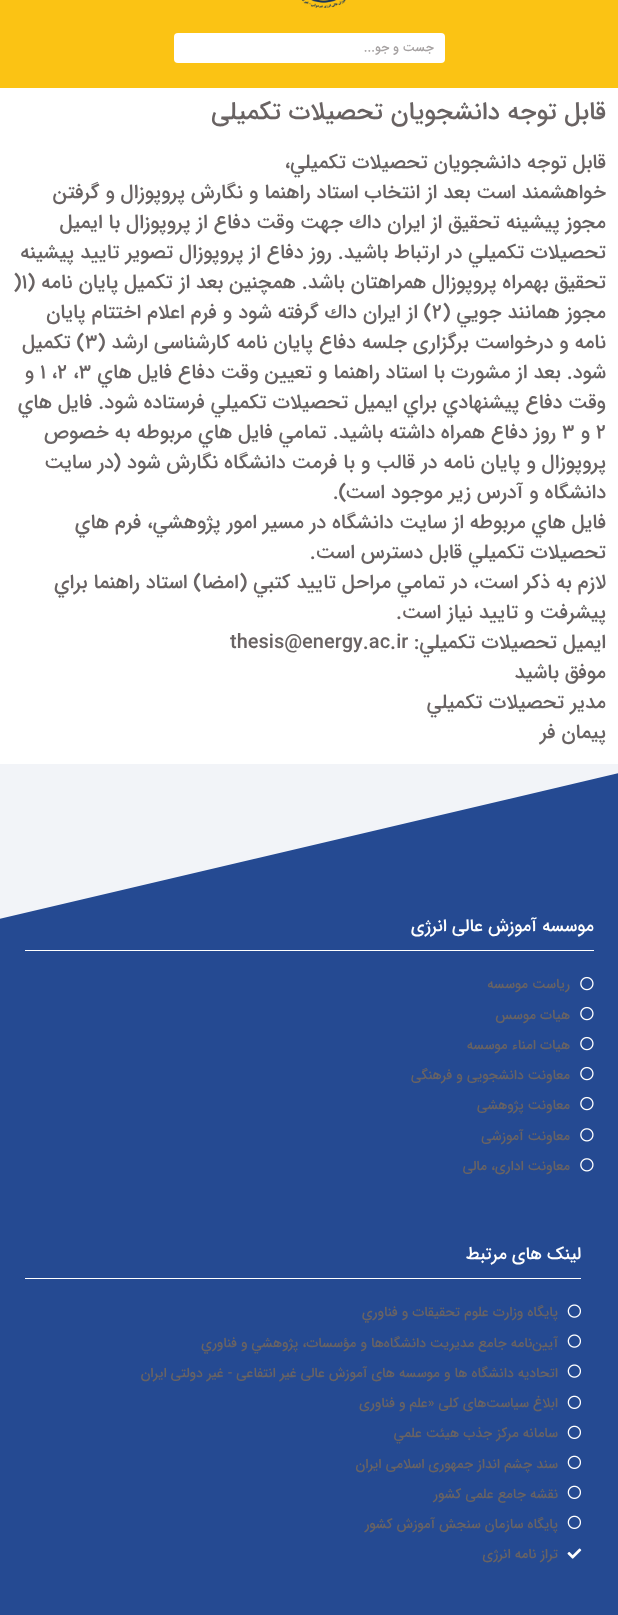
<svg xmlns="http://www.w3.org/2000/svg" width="618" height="1615">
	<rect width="100%" height="100%" fill="#FFFFFF" />
	<rect x="0" y="0" width="618" height="88" fill="#FBC314" />
	<image x="301" y="0" width="45" height="8" href="assets/img1.png" />
	<rect x="174" y="33" width="271" height="30" rx="4" fill="#FFFFFF" />
	<text x="434" y="51" font-family="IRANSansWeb" font-size="12.5" font-weight="500" direction="rtl" fill="#A5A1A1">جست و جو...</text>
	<text x="606" y="119" font-family="IRANSansWeb" font-size="25" font-weight="500" direction="rtl" fill="#696363">قابل توجه دانشجویان تحصیلات تکمیلی</text>
	<g font-family="IRANSansWeb" font-size="20" font-weight="500" direction="rtl" fill="#696363">
		<text x="606" y="168">قابل توجه دانشجويان تحصيلات تكميلي،</text>
		<text x="606" y="198">خواهشمند است بعد از انتخاب استاد راهنما و نگارش پروپوزال و گرفتن</text>
		<text x="606" y="228">مجوز پيشينه تحقيق از ايران داك جهت وقت دفاع از پروپوزال با ايميل</text>
		<text x="606" y="258">تحصيلات تكميلي در ارتباط باشيد. روز دفاع از پروپوزال تصوير تاييد پيشينه</text>
		<text x="606" y="288">تحقيق بهمراه پروپوزال همراهتان باشد. همچنين بعد از تكميل پايان نامه (</text>
	</g>
	<text x="13" y="288" font-family="IRANSansWeb" font-size="20" font-weight="500" fill="#696363">)١</text>
	<text x="606" y="318" font-family="IRANSansWeb" font-size="20" font-weight="500" direction="rtl" fill="#696363">مجوز همانند جويي (</text>
	<text x="432" y="318" font-family="IRANSansWeb" font-size="20" font-weight="500" fill="#696363">٢</text>
	<g font-family="IRANSansWeb" font-size="20" font-weight="500" direction="rtl" fill="#696363">
		<text x="432" y="318">) از ايران داك گرفته شود و فرم اعلام اختتام پایان</text>
		<text x="606" y="348">نامه و درخواست برگزاری جلسه دفاع پایان نامه کارشناسی ارشد (</text>
	</g>
	<text x="85" y="348" font-family="IRANSansWeb" font-size="20" font-weight="500" fill="#696363">٣</text>
	<g font-family="IRANSansWeb" font-size="20" font-weight="500" direction="rtl" fill="#696363">
		<text x="85" y="348">) تكميل</text>
		<text x="606" y="378">شود. بعد از مشورت با استاد راهنما و تعيين وقت دفاع فايل هاي</text>
	</g>
	<text x="40" y="378" font-family="IRANSansWeb" font-size="20" font-weight="500" fill="#696363">٣، ٢، ١</text>
	<g font-family="IRANSansWeb" font-size="20" font-weight="500" direction="rtl" fill="#696363">
		<text x="34" y="378">و</text>
		<text x="606" y="408">وقت دفاع پيشنهادي براي ايميل تحصيلات تكميلي فرستاده شود. فايل هاي</text>
	</g>
	<text x="596" y="438" font-family="IRANSansWeb" font-size="20" font-weight="500" fill="#696363">٢</text>
	<text x="590" y="438" font-family="IRANSansWeb" font-size="20" font-weight="500" direction="rtl" fill="#696363">و</text>
	<text x="562" y="438" font-family="IRANSansWeb" font-size="20" font-weight="500" fill="#696363">٣</text>
	<g font-family="IRANSansWeb" font-size="20" font-weight="500" direction="rtl" fill="#696363">
		<text x="556" y="438">روز دفاع همراه داشته باشيد. تمامي فايل هاي مربوطه به خصوص</text>
		<text x="606" y="468">پروپوزال و پايان نامه در قالب و با فرمت دانشگاه نگارش شود (در سايت</text>
		<text x="606" y="498">دانشگاه و آدرس زير موجود است).</text>
		<text x="606" y="528">فايل هاي مربوطه از سايت دانشگاه در مسير امور پژوهشي، فرم هاي</text>
		<text x="606" y="558">تحصيلات تكميلي قابل دسترس است.</text>
		<text x="606" y="588">لازم به ذكر است، در تمامي مراحل تاييد كتبي (امضا) استاد راهنما براي</text>
		<text x="606" y="618">پيشرفت و تاييد نياز است.</text>
		<text x="606" y="648">ایمیل تحصيلات تكميلي:</text>
	</g>
	<text x="230" y="648" font-family="IRANSansWeb" font-size="20" font-weight="500" fill="#696363">thesis@energy.ac.ir</text>
	<g font-family="IRANSansWeb" font-size="20" font-weight="500" direction="rtl" fill="#696363">
		<text x="606" y="678">موفق باشيد</text>
		<text x="606" y="708">مدير تحصيلات تكميلي</text>
		<text x="606" y="738">پيمان فر</text>
	</g>
	<rect x="0" y="773" width="618" height="842" fill="#254A92" />
	<path d="M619 773V764H-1V919Z" fill="#F2F4F8" />
	<text x="594" y="931" font-family="IRANSansWeb" font-size="17.5" font-weight="500" direction="rtl" fill="#FFFFFF">موسسه آموزش عالی انرژی</text>
	<rect x="25" y="950" width="569" height="1" fill="#FFFFFF" />
	<image x="580" y="976" width="14" height="15" href="assets/img2.png" />
	<text x="570" y="988" font-family="IRANSansWeb" font-size="13.75" font-weight="500" direction="rtl" fill="#696363">ریاست موسسه</text>
	<image x="580" y="1006" width="14" height="15" href="assets/img2.png" />
	<text x="570" y="1019" font-family="IRANSansWeb" font-size="13.75" font-weight="500" direction="rtl" fill="#696363">هیات موسس</text>
	<image x="580" y="1036" width="14" height="15" href="assets/img2.png" />
	<text x="570" y="1049" font-family="IRANSansWeb" font-size="13.75" font-weight="500" direction="rtl" fill="#696363">هیات امناء موسسه</text>
	<image x="580" y="1066" width="14" height="15" href="assets/img2.png" />
	<text x="570" y="1079" font-family="IRANSansWeb" font-size="13.75" font-weight="500" direction="rtl" fill="#696363">معاونت دانشجویی و فرهنگی</text>
	<image x="580" y="1096" width="14" height="15" href="assets/img2.png" />
	<text x="570" y="1109" font-family="IRANSansWeb" font-size="13.75" font-weight="500" direction="rtl" fill="#696363">معاونت پژوهشی</text>
	<image x="580" y="1128" width="14" height="14" href="assets/img3.png" />
	<text x="570" y="1140" font-family="IRANSansWeb" font-size="13.75" font-weight="500" direction="rtl" fill="#696363">معاونت آموزشی</text>
	<image x="580" y="1158" width="14" height="14" href="assets/img3.png" />
	<text x="570" y="1170" font-family="IRANSansWeb" font-size="13.75" font-weight="500" direction="rtl" fill="#696363">معاونت اداری، مالی</text>
	<text x="581" y="1259" font-family="IRANSansWeb" font-size="17.5" font-weight="500" direction="rtl" fill="#FFFFFF">لینک های مرتبط</text>
	<rect x="25" y="1278" width="556" height="1" fill="#FFFFFF" />
	<image x="567" y="1304" width="14" height="14" href="assets/img4.png" />
	<text x="558" y="1316" font-family="IRANSansWeb" font-size="13.75" font-weight="500" direction="rtl" fill="#696363">پايگاه وزارت علوم تحقيقات و فناوري</text>
	<image x="567" y="1334" width="14" height="14" href="assets/img4.png" />
	<text x="558" y="1347" font-family="IRANSansWeb" font-size="13.75" font-weight="500" direction="rtl" fill="#696363">آيين‌نامه جامع مديريت دانشگاه‌ها و مؤسسات، پژوهشي و فناوري</text>
	<image x="567" y="1364" width="14" height="14" href="assets/img4.png" />
	<text x="558" y="1377" font-family="IRANSansWeb" font-size="13.75" font-weight="500" direction="rtl" fill="#696363">اتحادیه دانشگاه ها و موسسه های آموزش عالی غیر انتفاعی - غیر دولتی ایران</text>
	<image x="567" y="1395" width="14" height="14" href="assets/img5.png" />
	<text x="558" y="1407" font-family="IRANSansWeb" font-size="13.75" font-weight="500" direction="rtl" fill="#696363">ابلاغ سیاست‌های کلی «علم و فناوری</text>
	<image x="567" y="1425" width="14" height="14" href="assets/img5.png" />
	<text x="558" y="1437" font-family="IRANSansWeb" font-size="13.75" font-weight="500" direction="rtl" fill="#696363">سامانه مرکز جذب هيئت علمي</text>
	<image x="567" y="1455" width="14" height="14" href="assets/img5.png" />
	<text x="558" y="1468" font-family="IRANSansWeb" font-size="13.75" font-weight="500" direction="rtl" fill="#696363">سند چشم انداز جمهوری اسلامی ایران</text>
	<image x="567" y="1485" width="14" height="14" href="assets/img5.png" />
	<text x="558" y="1498" font-family="IRANSansWeb" font-size="13.75" font-weight="500" direction="rtl" fill="#696363">نقشه جامع علمی کشور</text>
	<image x="567" y="1515" width="14" height="14" href="assets/img5.png" />
	<text x="558" y="1528" font-family="IRANSansWeb" font-size="13.75" font-weight="500" direction="rtl" fill="#696363">پایگاه سازمان سنجش آموزش کشور</text>
	<image x="567" y="1548" width="15" height="11" href="assets/img6.png" />
	<text x="558" y="1558" font-family="IRANSansWeb" font-size="13.75" font-weight="500" direction="rtl" fill="#696363">تراز نامه انرژی</text>
</svg>
